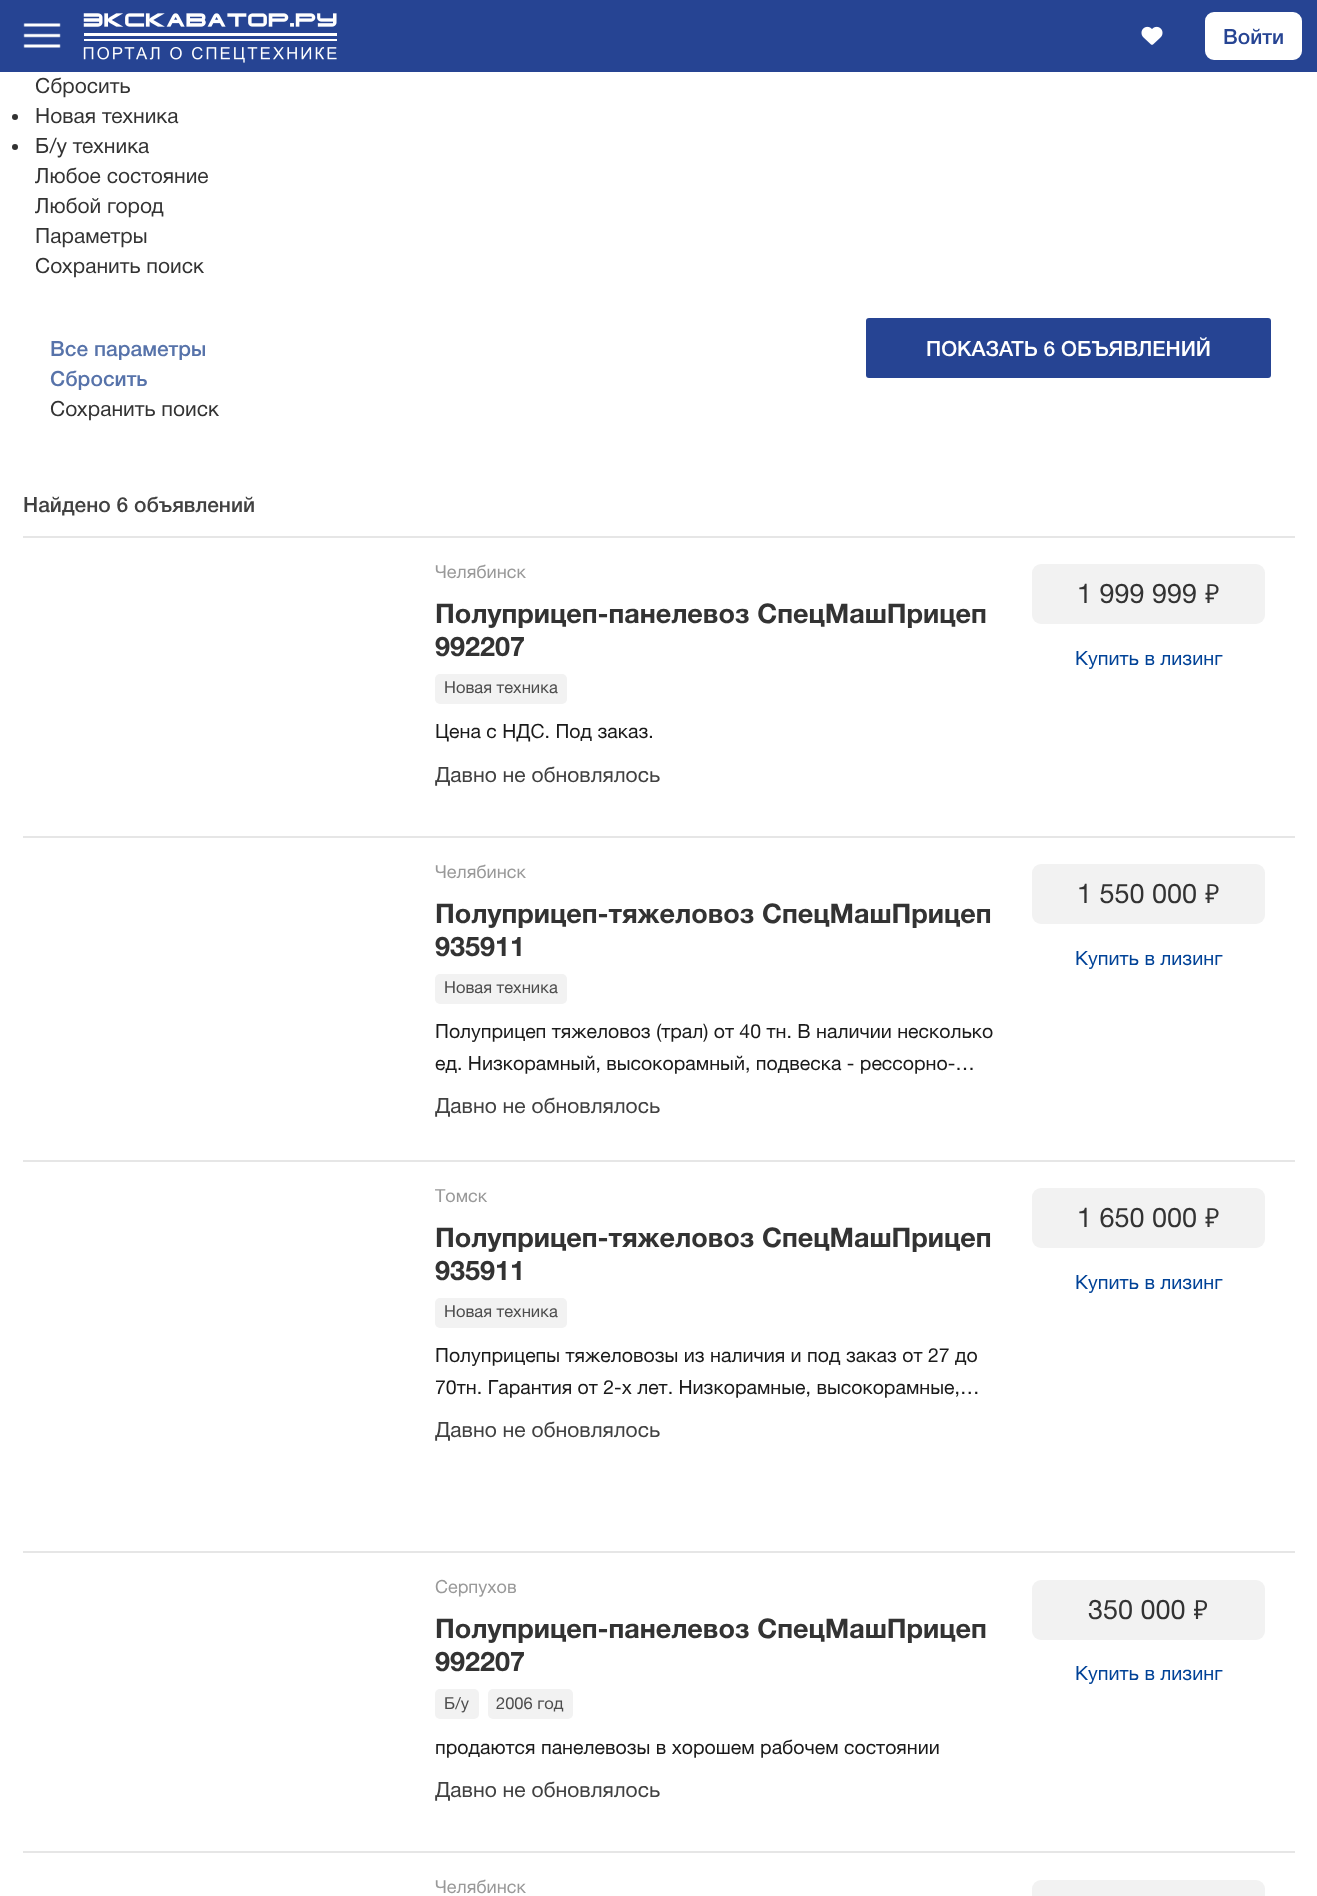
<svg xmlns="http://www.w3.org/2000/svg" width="1317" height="1896">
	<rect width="100%" height="100%" fill="#FFFFFF" />
	<rect x="0" y="0" width="1317" height="72" fill="#264493" />
	<image x="23" y="23" width="38" height="25" href="assets/img1.png" />
	<image x="83" y="13" width="254" height="50" href="assets/img2.png" />
	<image x="1141" y="26" width="22" height="19" href="assets/img3.png" />
	<rect x="1206" y="13" width="95" height="46" rx="8" fill="#FFFFFF" stroke="#FFFFFF" stroke-width="2" />
	<text x="1223" y="44" font-family="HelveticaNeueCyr" font-size="21" font-weight="500" fill="#264493">Войти</text>
	<text x="35" y="93" font-family="HelveticaNeueCyr" font-size="21" fill="#333333">Сбросить</text>
	<circle cx="15" cy="117" r="3" fill="#333333" />
	<text x="35" y="123" font-family="HelveticaNeueCyr" font-size="21" fill="#333333">Новая техника</text>
	<circle cx="15" cy="147" r="3" fill="#333333" />
	<g font-family="HelveticaNeueCyr" font-size="21" fill="#333333">
		<text x="35" y="153">Б/у техника</text>
		<text x="35" y="183">Любое состояние</text>
		<text x="35" y="213">Любой город</text>
		<text x="35" y="243">Параметры</text>
		<text x="35" y="273">Сохранить поиск</text>
	</g>
	<g font-family="HelveticaNeueCyr" font-size="21" font-weight="500" fill="#5773AA">
		<text x="50" y="356">Все параметры</text>
		<text x="50" y="386">Сбросить</text>
	</g>
	<text x="50" y="416" font-family="HelveticaNeueCyr" font-size="21" fill="#333333">Сохранить поиск</text>
	<rect x="866" y="318" width="405" height="60" rx="3" fill="#264493" />
	<text x="926" y="356" font-family="HelveticaNeueCyr" font-size="21" font-weight="500" fill="#FFFFFF">ПОКАЗАТЬ 6 ОБЪЯВЛЕНИЙ</text>
	<text x="23" y="512" font-family="HelveticaNeueCyr" font-size="21" font-weight="500" fill="#414141">Найдено 6 объявлений</text>
	<rect x="23" y="536" width="1272" height="2" fill="#E6E6E6" />
	<text x="435" y="578" font-family="Helvetica Neue" font-size="18" fill="#999999">Челябинск</text>
	<g font-family="Helvetica Neue" font-size="27" font-weight="700" fill="#333333">
		<text x="435" y="623">Полуприцеп-панелевоз СпецМашПрицеп</text>
		<text x="435" y="656">992207</text>
	</g>
	<rect x="435" y="674" width="132" height="30" rx="5" fill="#F2F2F2" />
	<text x="444" y="693" font-family="Helvetica Neue" font-size="16.5" fill="#4D4D4D">Новая техника</text>
	<rect x="1032" y="564" width="233" height="60" rx="9" fill="#F2F2F2" />
	<text x="1077" y="603" font-family="Helvetica Neue" font-size="27" fill="#333333">1 999 999 ₽</text>
	<text x="1075" y="665" font-family="Helvetica Neue" font-size="19.5" fill="#004297">Купить в лизинг</text>
	<text x="435" y="738" font-family="Helvetica Neue" font-size="19.5" fill="#1A1A1A">Цена с НДС. Под заказ.</text>
	<text x="435" y="782" font-family="Helvetica Neue" font-size="21" fill="#414141">Давно не обновлялось</text>
	<rect x="23" y="836" width="1272" height="2" fill="#E6E6E6" />
	<text x="435" y="878" font-family="Helvetica Neue" font-size="18" fill="#999999">Челябинск</text>
	<g font-family="Helvetica Neue" font-size="27" font-weight="700" fill="#333333">
		<text x="435" y="923">Полуприцеп-тяжеловоз СпецМашПрицеп</text>
		<text x="435" y="956">935911</text>
	</g>
	<rect x="435" y="974" width="132" height="30" rx="5" fill="#F2F2F2" />
	<text x="444" y="993" font-family="Helvetica Neue" font-size="16.5" fill="#4D4D4D">Новая техника</text>
	<rect x="1032" y="864" width="233" height="60" rx="9" fill="#F2F2F2" />
	<text x="1077" y="903" font-family="Helvetica Neue" font-size="27" fill="#333333">1 550 000 ₽</text>
	<text x="1075" y="965" font-family="Helvetica Neue" font-size="19.5" fill="#004297">Купить в лизинг</text>
	<g font-family="Helvetica Neue" font-size="19.5" fill="#1A1A1A">
		<text x="435" y="1038">Полуприцеп тяжеловоз (трал) от 40 тн. В наличии несколько</text>
		<text x="435" y="1070">ед. Низкорамный, высокорамный, подвеска - рессорно-…</text>
	</g>
	<text x="435" y="1113" font-family="Helvetica Neue" font-size="21" fill="#414141">Давно не обновлялось</text>
	<rect x="23" y="1160" width="1272" height="2" fill="#E6E6E6" />
	<text x="435" y="1202" font-family="Helvetica Neue" font-size="18" fill="#999999">Томск</text>
	<g font-family="Helvetica Neue" font-size="27" font-weight="700" fill="#333333">
		<text x="435" y="1247">Полуприцеп-тяжеловоз СпецМашПрицеп</text>
		<text x="435" y="1280">935911</text>
	</g>
	<rect x="435" y="1298" width="132" height="30" rx="5" fill="#F2F2F2" />
	<text x="444" y="1317" font-family="Helvetica Neue" font-size="16.5" fill="#4D4D4D">Новая техника</text>
	<rect x="1032" y="1188" width="233" height="60" rx="9" fill="#F2F2F2" />
	<text x="1077" y="1227" font-family="Helvetica Neue" font-size="27" fill="#333333">1 650 000 ₽</text>
	<text x="1075" y="1289" font-family="Helvetica Neue" font-size="19.5" fill="#004297">Купить в лизинг</text>
	<g font-family="Helvetica Neue" font-size="19.5" fill="#1A1A1A">
		<text x="435" y="1362">Полуприцепы тяжеловозы из наличия и под заказ от 27 до</text>
		<text x="435" y="1394">70тн. Гарантия от 2-х лет. Низкорамные, высокорамные,…</text>
	</g>
	<text x="435" y="1437" font-family="Helvetica Neue" font-size="21" fill="#414141">Давно не обновлялось</text>
	<rect x="23" y="1551" width="1272" height="2" fill="#E6E6E6" />
	<text x="435" y="1593" font-family="Helvetica Neue" font-size="18" fill="#999999">Серпухов</text>
	<g font-family="Helvetica Neue" font-size="27" font-weight="700" fill="#333333">
		<text x="435" y="1638">Полуприцеп-панелевоз СпецМашПрицеп</text>
		<text x="435" y="1671">992207</text>
	</g>
	<rect x="435" y="1689" width="44" height="30" rx="5" fill="#F2F2F2" />
	<text x="444" y="1709" font-family="Helvetica Neue" font-size="16.5" fill="#4D4D4D">Б/у</text>
	<rect x="488" y="1689" width="85" height="30" rx="5" fill="#F2F2F2" />
	<text x="496" y="1709" font-family="Helvetica Neue" font-size="16.5" fill="#4D4D4D">2006 год</text>
	<rect x="1032" y="1580" width="233" height="60" rx="9" fill="#F2F2F2" />
	<text x="1088" y="1619" font-family="Helvetica Neue" font-size="27" fill="#333333">350 000 ₽</text>
	<text x="1075" y="1680" font-family="Helvetica Neue" font-size="19.5" fill="#004297">Купить в лизинг</text>
	<text x="435" y="1754" font-family="Helvetica Neue" font-size="19.5" fill="#1A1A1A">продаются панелевозы в хорошем рабочем состоянии</text>
	<text x="435" y="1797" font-family="Helvetica Neue" font-size="21" fill="#414141">Давно не обновлялось</text>
	<rect x="23" y="1851" width="1272" height="2" fill="#E6E6E6" />
	<text x="435" y="1893" font-family="Helvetica Neue" font-size="18" fill="#999999">Челябинск</text>
	<rect x="1032" y="1880" width="233" height="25" rx="9" fill="#F2F2F2" />
</svg>
